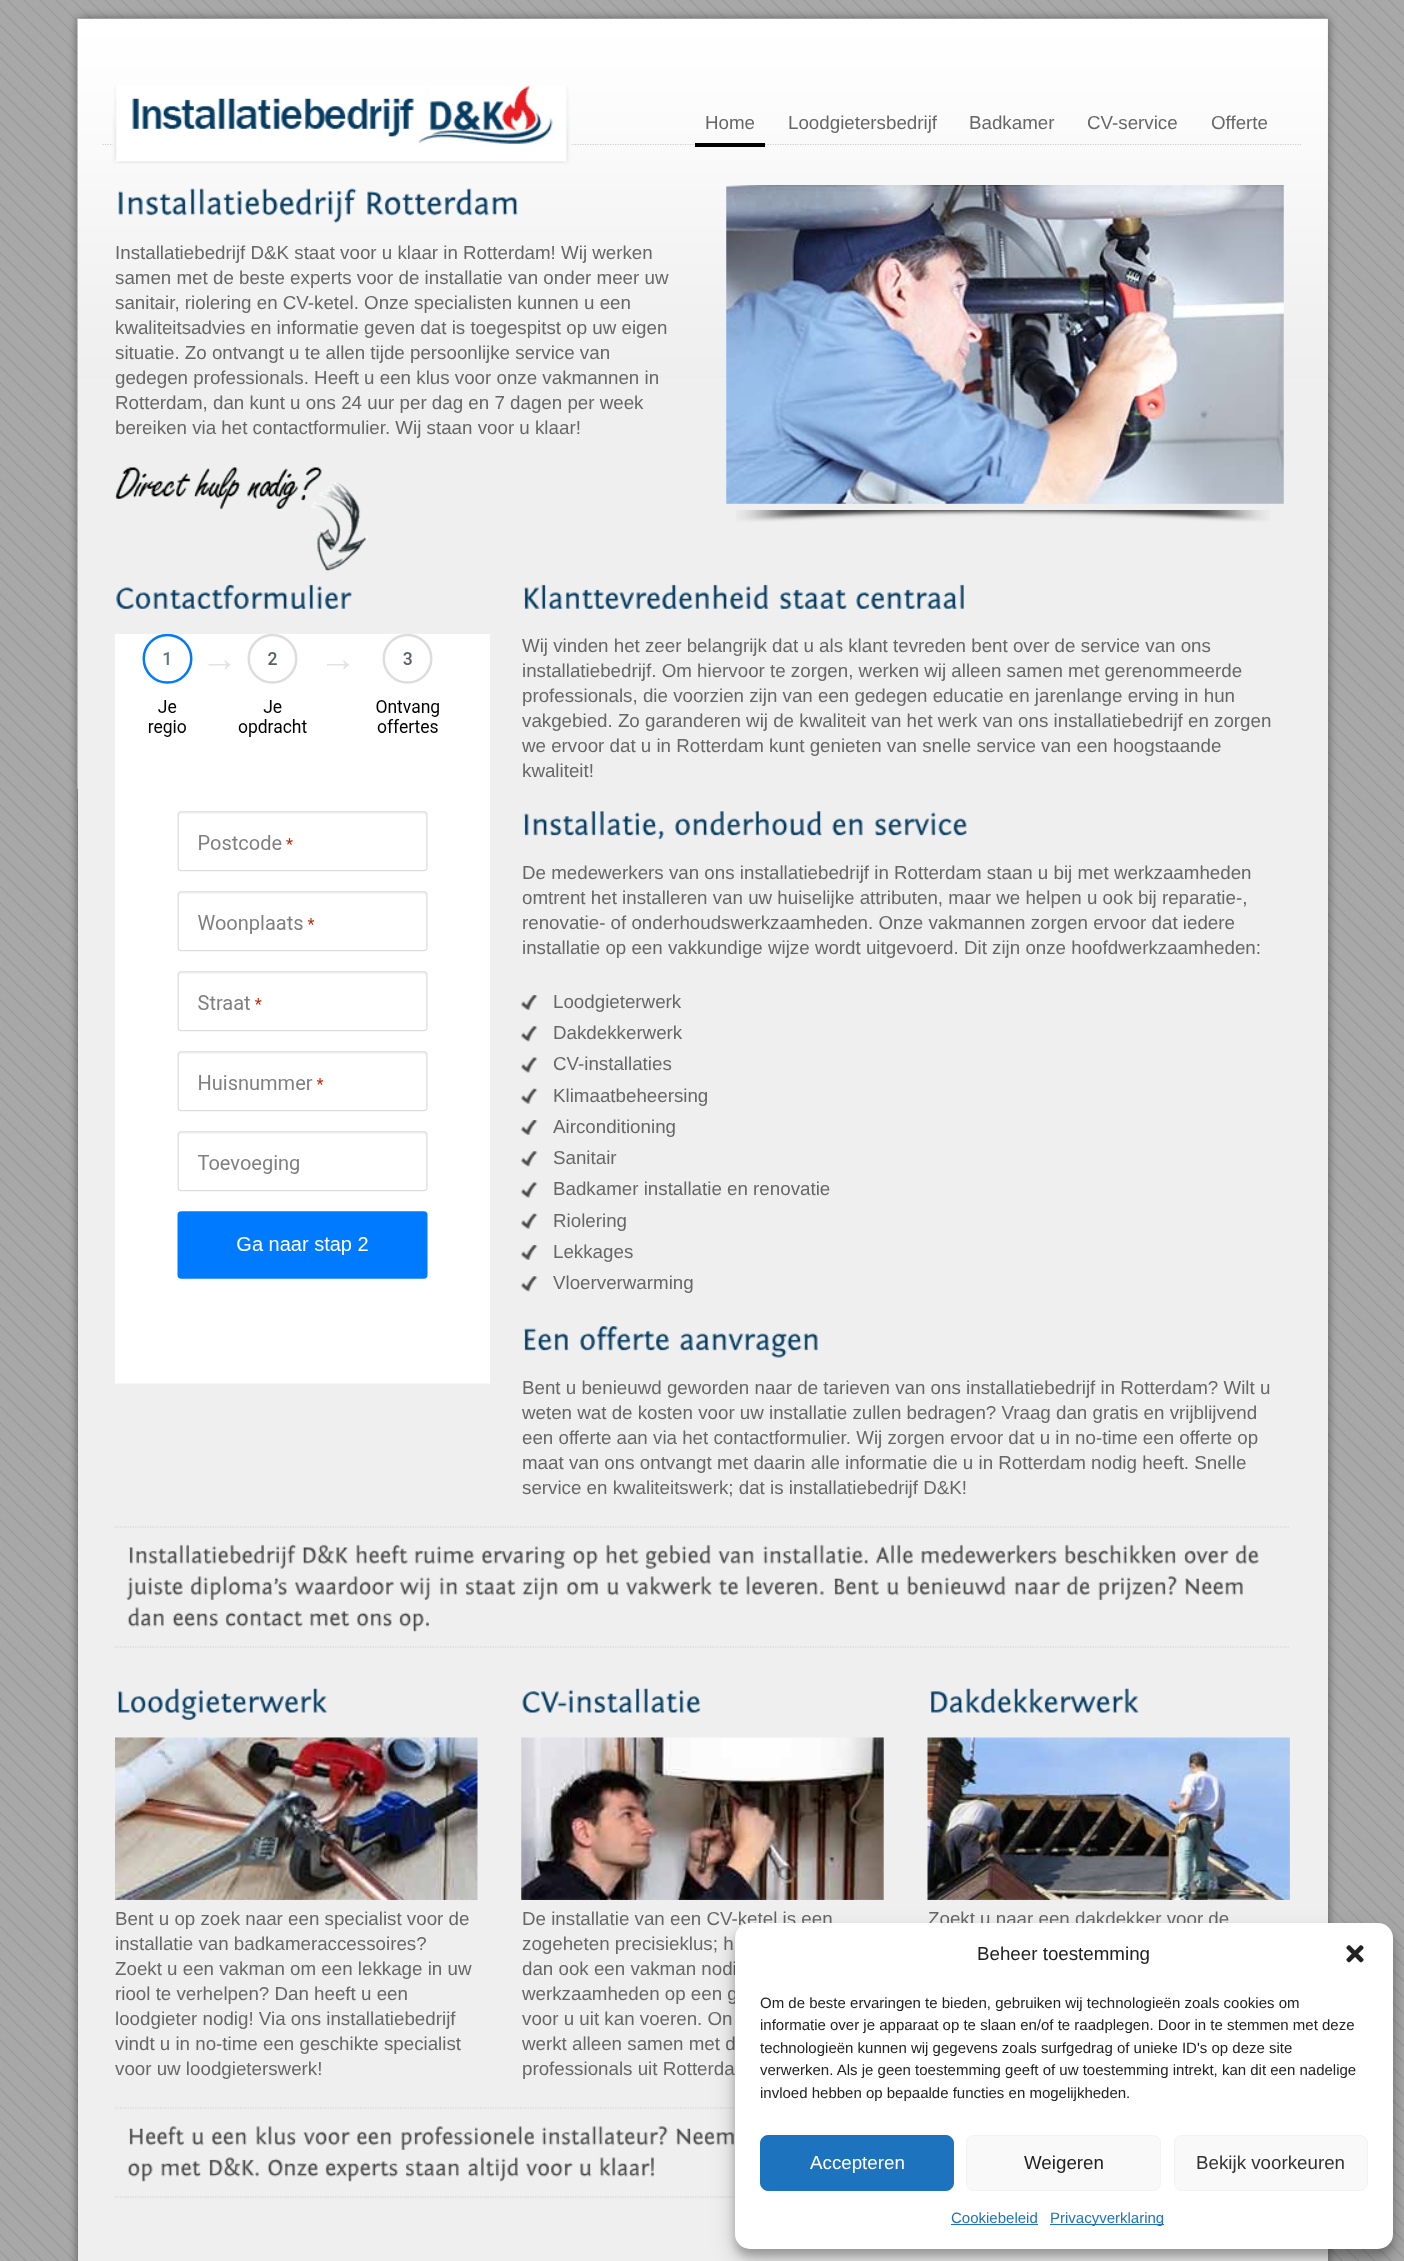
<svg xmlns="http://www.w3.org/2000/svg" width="1404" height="2261">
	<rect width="100%" height="100%" fill="#A8A8A8" />
	<image x="0" y="0" width="1404" height="2261" href="assets/img1.png" />
	<rect x="78" y="19" width="1250" height="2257" fill="#555555" filter="blur(5px)" />
	<rect x="78" y="19" width="1250" height="2242" fill="#EFEFEF" />
	<image x="77" y="18" width="1251" height="771" href="assets/img2.png" />
	<path d="M102.5 144.5H1302.5" fill="none" stroke="#CFCFCF" stroke-width="1.2" stroke-dasharray="1.25 1.25" />
	<image x="112" y="85" width="459" height="79" href="assets/img3.png" />
	<g font-family="Liberation Sans" font-size="18.75" fill="#676767">
		<text x="705" y="129">Home</text>
		<text x="788" y="129">Loodgietersbedrijf</text>
		<text x="969" y="129">Badkamer</text>
		<text x="1087" y="129">CV-service</text>
		<text x="1211" y="129">Offerte</text>
	</g>
	<rect x="695" y="143" width="70" height="4" fill="#000000" />
	<image x="118" y="188" width="239" height="35" href="assets/img4.png" />
	<image x="367" y="188" width="151" height="28" href="assets/img5.png" />
	<g font-family="Liberation Sans" font-size="18.75" fill="#676767">
		<text x="115" y="259">Installatiebedrijf D&amp;K staat voor u klaar in Rotterdam! Wij werken</text>
		<text x="115" y="284">samen met de beste experts voor de installatie van onder meer uw</text>
		<text x="115" y="309">sanitair, riolering en CV-ketel. Onze specialisten kunnen u een</text>
		<text x="115" y="334">kwaliteitsadvies en informatie geven dat is toegespitst op uw eigen</text>
		<text x="115" y="359">situatie. Zo ontvangt u te allen tijde persoonlijke service van</text>
		<text x="115" y="384">gedegen professionals. Heeft u een klus voor onze vakmannen in</text>
		<text x="115" y="409">Rotterdam, dan kunt u ons 24 uur per dag en 7 dagen per week</text>
		<text x="115" y="434">bereiken via het contactformulier. Wij staan voor u klaar!</text>
	</g>
	<image x="115" y="467" width="253" height="105" href="assets/img6.png" />
	<image x="736" y="510" width="534" height="12" href="assets/img7.png" />
	<image x="726" y="185" width="558" height="319" href="assets/img8.png" />
	<image x="116" y="584" width="236" height="25" href="assets/img9.png" />
	<image x="115" y="633" width="375" height="751" href="assets/img10.png" />
	<image x="523" y="584" width="246" height="25" href="assets/img11.png" />
	<image x="779" y="589" width="68" height="20" href="assets/img12.png" />
	<image x="856" y="584" width="108" height="25" href="assets/img13.png" />
	<g font-family="Liberation Sans" font-size="18.75" fill="#676767">
		<text x="522" y="652">Wij vinden het zeer belangrijk dat u als klant tevreden bent over de service van ons</text>
		<text x="522" y="677">installatiebedrijf. Om hiervoor te zorgen, werken wij alleen samen met gerenommeerde</text>
		<text x="522" y="702">professionals, die voorzien zijn van een gedegen educatie en jarenlange erving in hun</text>
		<text x="522" y="727">vakgebied. Zo garanderen wij de kwaliteit van het werk van ons installatiebedrijf en zorgen</text>
		<text x="522" y="752">we ervoor dat u in Rotterdam kunt genieten van snelle service van een hoogstaande</text>
		<text x="522" y="777">kwaliteit!</text>
	</g>
	<image x="523" y="811" width="141" height="29" href="assets/img14.png" />
	<image x="674" y="811" width="148" height="25" href="assets/img15.png" />
	<image x="832" y="818" width="31" height="18" href="assets/img16.png" />
	<image x="874" y="812" width="93" height="24" href="assets/img17.png" />
	<g font-family="Liberation Sans" font-size="18.75" fill="#676767">
		<text x="522" y="879">De medewerkers van ons installatiebedrijf in Rotterdam staan u bij met werkzaamheden</text>
		<text x="522" y="904">omtrent het installeren van uw huiselijke attributen, maar we helpen u ook bij reparatie-,</text>
		<text x="522" y="929">renovatie- of onderhoudswerkzaamheden. Onze vakmannen zorgen ervoor dat iedere</text>
		<text x="522" y="954">installatie op een vakkundige wijze wordt uitgevoerd. Dit zijn onze hoofdwerkzaamheden:</text>
	</g>
	<image x="521" y="995" width="17" height="15" href="assets/img18.png" />
	<text x="553" y="1008" font-family="Liberation Sans" font-size="18.75" fill="#676767">Loodgieterwerk</text>
	<image x="521" y="1026" width="17" height="16" href="assets/img19.png" />
	<text x="553" y="1039" font-family="Liberation Sans" font-size="18.75" fill="#676767">Dakdekkerwerk</text>
	<image x="521" y="1057" width="17" height="16" href="assets/img20.png" />
	<text x="553" y="1070" font-family="Liberation Sans" font-size="18.75" fill="#676767">CV-installaties</text>
	<image x="521" y="1088" width="17" height="16" href="assets/img21.png" />
	<text x="553" y="1102" font-family="Liberation Sans" font-size="18.75" fill="#676767">Klimaatbeheersing</text>
	<image x="521" y="1120" width="17" height="15" href="assets/img18.png" />
	<text x="553" y="1133" font-family="Liberation Sans" font-size="18.75" fill="#676767">Airconditioning</text>
	<image x="521" y="1151" width="17" height="16" href="assets/img19.png" />
	<text x="553" y="1164" font-family="Liberation Sans" font-size="18.75" fill="#676767">Sanitair</text>
	<image x="521" y="1182" width="17" height="16" href="assets/img20.png" />
	<text x="553" y="1195" font-family="Liberation Sans" font-size="18.75" fill="#676767">Badkamer installatie en renovatie</text>
	<image x="521" y="1213" width="17" height="16" href="assets/img21.png" />
	<text x="553" y="1227" font-family="Liberation Sans" font-size="18.75" fill="#676767">Riolering</text>
	<image x="521" y="1245" width="17" height="15" href="assets/img18.png" />
	<text x="553" y="1258" font-family="Liberation Sans" font-size="18.75" fill="#676767">Lekkages</text>
	<image x="521" y="1276" width="17" height="16" href="assets/img19.png" />
	<text x="553" y="1289" font-family="Liberation Sans" font-size="18.75" fill="#676767">Vloerverwarming</text>
	<image x="523" y="1328" width="46" height="23" href="assets/img22.png" />
	<image x="579" y="1326" width="90" height="25" href="assets/img23.png" />
	<image x="679" y="1333" width="139" height="25" href="assets/img24.png" />
	<g font-family="Liberation Sans" font-size="18.75" fill="#676767">
		<text x="522" y="1394">Bent u benieuwd geworden naar de tarieven van ons installatiebedrijf in Rotterdam? Wilt u</text>
		<text x="522" y="1419">weten wat de kosten voor uw installatie zullen bedragen? Vraag dan gratis en vrijblijvend</text>
		<text x="522" y="1444">een offerte aan via het contactformulier. Wij zorgen ervoor dat u in no-time een offerte op</text>
		<text x="522" y="1469">maat van ons ontvangt met daarin alle informatie die u in Rotterdam nodig heeft. Snelle</text>
		<text x="522" y="1494">service en kwaliteitswerk; dat is installatiebedrijf D&amp;K!</text>
	</g>
	<path d="M115 1527H1290" fill="none" stroke="#CFCFCF" stroke-width="1.2" stroke-dasharray="1.25 1.25" />
	<path d="M115 1647H1290" fill="none" stroke="#CFCFCF" stroke-width="1.2" stroke-dasharray="1.25 1.25" />
	<image x="128" y="1544" width="169" height="25" href="assets/img25.png" />
	<image x="302" y="1544" width="46" height="20" href="assets/img26.png" />
	<image x="356" y="1544" width="52" height="20" href="assets/img27.png" />
	<image x="414" y="1546" width="60" height="18" href="assets/img28.png" />
	<image x="481" y="1546" width="85" height="23" href="assets/img29.png" />
	<image x="572" y="1550" width="26" height="19" href="assets/img30.png" />
	<image x="606" y="1544" width="33" height="20" href="assets/img31.png" />
	<image x="645" y="1544" width="66" height="25" href="assets/img32.png" />
	<image x="718" y="1551" width="36" height="13" href="assets/img33.png" />
	<image x="763" y="1544" width="105" height="20" href="assets/img34.png" />
	<image x="876" y="1544" width="37" height="20" href="assets/img35.png" />
	<image x="921" y="1544" width="136" height="20" href="assets/img36.png" />
	<image x="1064" y="1544" width="112" height="20" href="assets/img37.png" />
	<image x="1184" y="1550" width="45" height="14" href="assets/img38.png" />
	<image x="1235" y="1544" width="24" height="20" href="assets/img39.png" />
	<image x="126" y="1577" width="57" height="23" href="assets/img40.png" />
	<image x="190" y="1576" width="98" height="24" href="assets/img41.png" />
	<image x="294" y="1576" width="100" height="20" href="assets/img42.png" />
	<image x="399" y="1577" width="32" height="23" href="assets/img43.png" />
	<image x="439" y="1577" width="19" height="19" href="assets/img44.png" />
	<image x="465" y="1579" width="51" height="17" href="assets/img45.png" />
	<image x="522" y="1577" width="36" height="23" href="assets/img46.png" />
	<image x="566" y="1581" width="33" height="15" href="assets/img47.png" />
	<image x="607" y="1582" width="12" height="14" href="assets/img48.png" />
	<image x="626" y="1576" width="87" height="20" href="assets/img49.png" />
	<image x="718" y="1579" width="21" height="17" href="assets/img50.png" />
	<image x="746" y="1576" width="78" height="20" href="assets/img51.png" />
	<image x="833" y="1578" width="46" height="18" href="assets/img52.png" />
	<image x="887" y="1582" width="12" height="14" href="assets/img53.png" />
	<image x="907" y="1576" width="99" height="20" href="assets/img54.png" />
	<image x="1014" y="1581" width="47" height="15" href="assets/img55.png" />
	<image x="1066" y="1576" width="25" height="20" href="assets/img56.png" />
	<image x="1098" y="1576" width="79" height="24" href="assets/img57.png" />
	<image x="1185" y="1578" width="58" height="18" href="assets/img58.png" />
	<image x="127" y="1607" width="37" height="20" href="assets/img59.png" />
	<image x="172" y="1612" width="46" height="15" href="assets/img60.png" />
	<image x="225" y="1611" width="78" height="16" href="assets/img61.png" />
	<image x="309" y="1611" width="41" height="16" href="assets/img62.png" />
	<image x="356" y="1612" width="36" height="15" href="assets/img63.png" />
	<image x="399" y="1612" width="31" height="20" href="assets/img64.png" />
	<image x="117" y="1688" width="211" height="32" href="assets/img65.png" />
	<image x="115" y="1737" width="363" height="163" href="assets/img66.png" />
	<g font-family="Liberation Sans" font-size="18.75" fill="#676767">
		<text x="115" y="1925">Bent u op zoek naar een specialist voor de</text>
		<text x="115" y="1950">installatie van badkameraccessoires?</text>
		<text x="115" y="1975">Zoekt u een vakman om een lekkage in uw</text>
		<text x="115" y="2000">riool te verhelpen? Dan heeft u een</text>
		<text x="115" y="2025">loodgieter nodig! Via ons installatiebedrijf</text>
		<text x="115" y="2050">vindt u in no-time een geschikte specialist</text>
		<text x="115" y="2075">voor uw loodgieterswerk!</text>
	</g>
	<image x="522" y="1688" width="179" height="25" href="assets/img67.png" />
	<image x="521" y="1737" width="363" height="163" href="assets/img68.png" />
	<g font-family="Liberation Sans" font-size="18.75" fill="#676767">
		<text x="522" y="1925">De installatie van een CV-ketel is een</text>
		<text x="522" y="1950">zogeheten precisieklus; h</text>
		<text x="522" y="1975">dan ook een vakman nodi</text>
		<text x="522" y="2000">werkzaamheden op een g</text>
		<text x="522" y="2025">voor u uit kan voeren. On</text>
		<text x="522" y="2050">werkt alleen samen met d</text>
		<text x="522" y="2075">professionals uit Rotterda</text>
	</g>
	<image x="930" y="1688" width="209" height="25" href="assets/img69.png" />
	<image x="927" y="1737" width="363" height="163" href="assets/img70.png" />
	<text x="928" y="1925" font-family="Liberation Sans" font-size="18.75" fill="#676767">Zoekt u naar een dakdekker voor de</text>
	<path d="M115 2108H1290" fill="none" stroke="#CFCFCF" stroke-width="1.2" stroke-dasharray="1.25 1.25" />
	<path d="M115 2197H1290" fill="none" stroke="#CFCFCF" stroke-width="1.2" stroke-dasharray="1.25 1.25" />
	<image x="128" y="2126" width="56" height="20" href="assets/img71.png" />
	<image x="192" y="2132" width="12" height="14" href="assets/img53.png" />
	<image x="211" y="2131" width="36" height="15" href="assets/img72.png" />
	<image x="256" y="2126" width="40" height="20" href="assets/img73.png" />
	<image x="303" y="2131" width="48" height="15" href="assets/img74.png" />
	<image x="356" y="2131" width="36" height="15" href="assets/img75.png" />
	<image x="401" y="2126" width="134" height="24" href="assets/img76.png" />
	<image x="542" y="2126" width="126" height="20" href="assets/img77.png" />
	<image x="676" y="2128" width="58" height="18" href="assets/img78.png" />
	<image x="127" y="2162" width="26" height="20" href="assets/img79.png" />
	<image x="161" y="2161" width="41" height="16" href="assets/img80.png" />
	<image x="208" y="2157" width="51" height="20" href="assets/img81.png" />
	<image x="267" y="2158" width="51" height="19" href="assets/img82.png" />
	<image x="325" y="2161" width="73" height="21" href="assets/img83.png" />
	<image x="405" y="2161" width="54" height="16" href="assets/img84.png" />
	<image x="468" y="2157" width="51" height="25" href="assets/img85.png" />
	<image x="526" y="2162" width="47" height="15" href="assets/img86.png" />
	<image x="579" y="2163" width="13" height="14" href="assets/img87.png" />
	<image x="599" y="2157" width="55" height="20" href="assets/img88.png" />
	<rect x="735" y="1930" width="658" height="326" rx="15" fill="#000000" fill-opacity="0.23" filter="blur(4px)" />
	<rect x="735" y="1935" width="658" height="326" rx="15" fill="#000000" fill-opacity="0.19" filter="blur(12.5px)" />
	<rect x="735" y="1923" width="658" height="326" rx="15" fill="#FFFFFF" />
	<text x="977" y="1960" font-family="Liberation Sans" font-size="18.75" fill="#222222">Beheer toestemming</text>
	<image x="1346" y="1945" width="18" height="18" href="assets/img89.png" />
	<g font-family="Liberation Sans" font-size="15" fill="#222222">
		<text x="760" y="2008">Om de beste ervaringen te bieden, gebruiken wij technologieën zoals cookies om</text>
		<text x="760" y="2030">informatie over je apparaat op te slaan en/of te raadplegen. Door in te stemmen met deze</text>
		<text x="760" y="2053">technologieën kunnen wij gegevens zoals surfgedrag of unieke ID's op deze site</text>
		<text x="760" y="2075">verwerken. Als je geen toestemming geeft of uw toestemming intrekt, kan dit een nadelige</text>
		<text x="760" y="2098">invloed hebben op bepaalde functies en mogelijkheden.</text>
	</g>
	<rect x="760.5" y="2135.5" width="193" height="55" rx="7.5" fill="#1E73BE" stroke="#1E73BE" />
	<text x="810" y="2169" font-family="Liberation Sans" font-size="18.75" fill="#FFFFFF">Accepteren</text>
	<rect x="966.5" y="2135.5" width="194" height="55" rx="7.5" fill="#F9F9F9" stroke="#F2F2F2" />
	<text x="1024" y="2169" font-family="Liberation Sans" font-size="18.75" fill="#222222">Weigeren</text>
	<rect x="1174.5" y="2135.5" width="193" height="55" rx="7.5" fill="#F9F9F9" stroke="#F2F2F2" />
	<text x="1196" y="2169" font-family="Liberation Sans" font-size="18.75" fill="#333333">Bekijk voorkeuren</text>
	<text x="951" y="2223" font-family="Liberation Sans" font-size="15" fill="#1E73BE">Cookiebeleid</text>
	<rect x="951" y="2224" width="87" height="1" fill="#1E73BE" />
	<rect x="1050" y="2224" width="114" height="1" fill="#1E73BE" />
	<text x="1050" y="2223" font-family="Liberation Sans" font-size="15" fill="#1E73BE">Privacyverklaring</text>
</svg>
